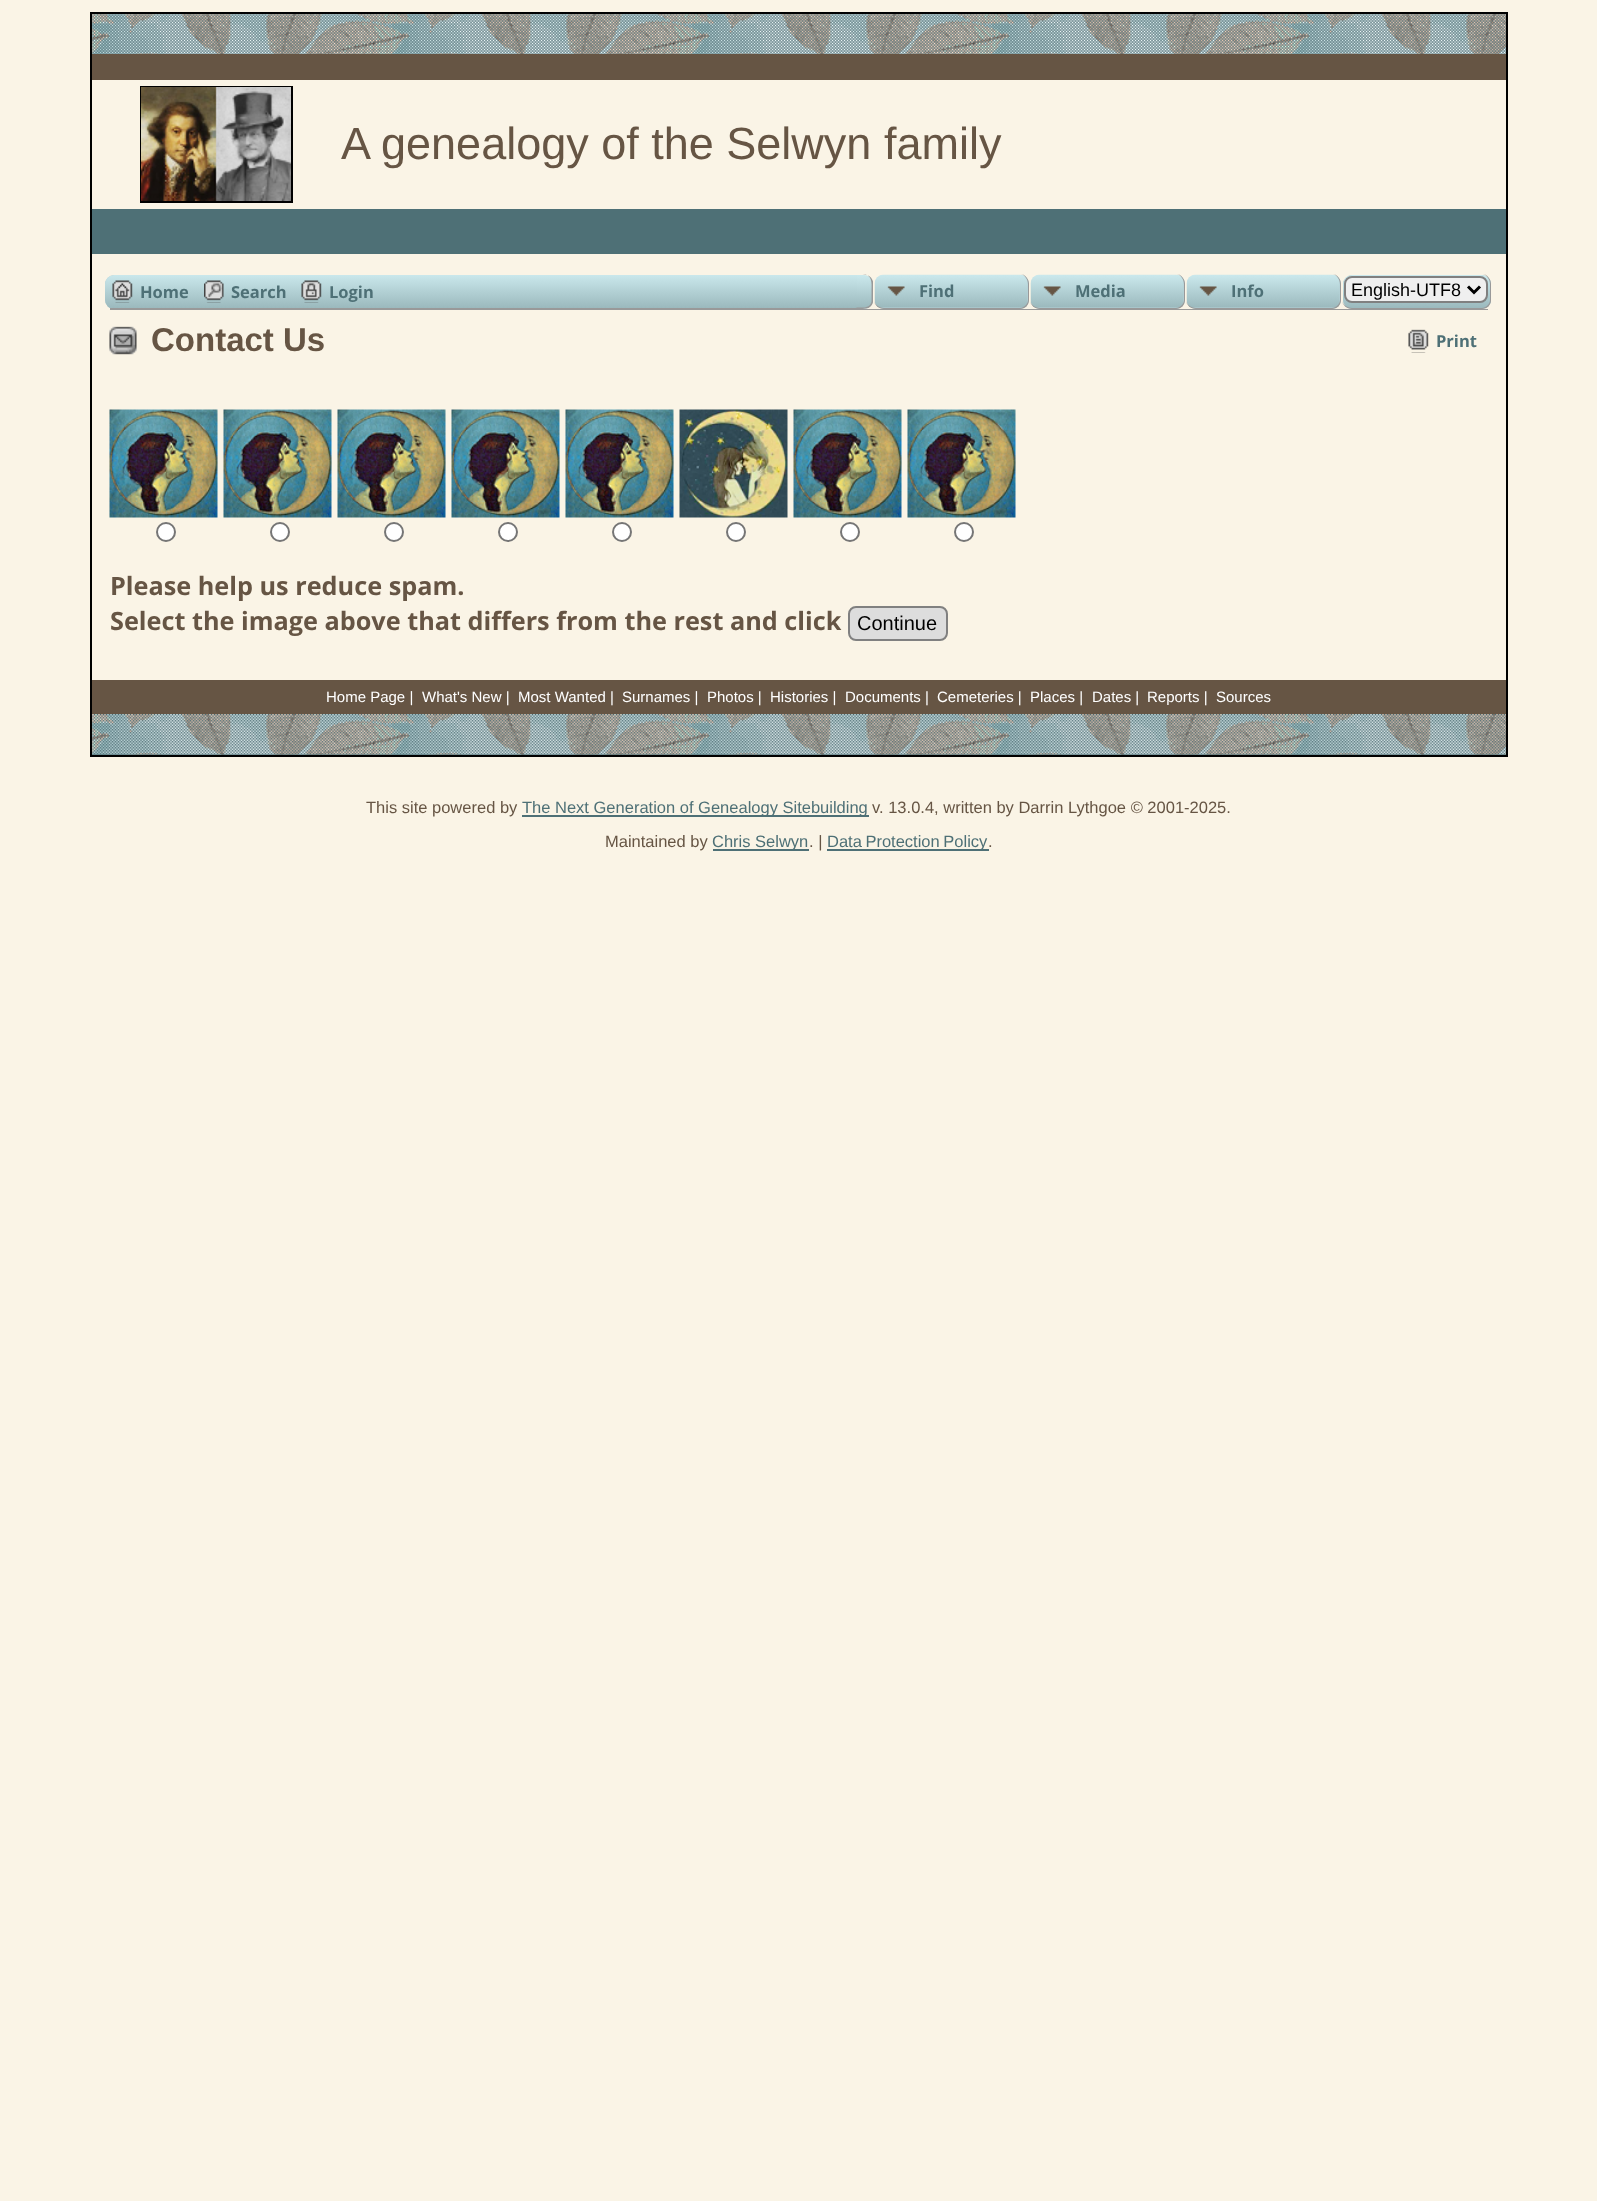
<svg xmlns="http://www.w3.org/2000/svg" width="1597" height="2201">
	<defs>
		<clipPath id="clip1"><rect x="105" y="275" width="1388" height="34" rx="9" /></clipPath>
		<linearGradient id="g1" gradientUnits="userSpaceOnUse" x1="799" y1="274" x2="799" y2="308"><stop offset="0" stop-color="#CBE9ED" /><stop offset="1" stop-color="#9BB9BD" /></linearGradient>
		<clipPath id="clip2"><path d="M857 275H864C869 275 873 279 873 284V300C873 305 869 309 864 309H857Z" /></clipPath>
		<linearGradient id="g2" gradientUnits="userSpaceOnUse" x1="864" y1="275" x2="864" y2="308"><stop offset="0" stop-color="#CBE9ED" /><stop offset="1" stop-color="#9BB9BD" /></linearGradient>
		<linearGradient id="g3" gradientUnits="userSpaceOnUse" x1="864" y1="308" x2="864" y2="341"><stop offset="0" stop-color="#CBE9ED" /><stop offset="1" stop-color="#9BB9BD" /></linearGradient>
		<clipPath id="clip3"><rect x="1343" y="275" width="148" height="34" rx="9" /></clipPath>
		<linearGradient id="g4" gradientUnits="userSpaceOnUse" x1="1416" y1="275" x2="1416" y2="308"><stop offset="0" stop-color="#CBE9ED" /><stop offset="1" stop-color="#9BB9BD" /></linearGradient>
	</defs>
	<rect width="100%" height="100%" fill="#FAF4E6" />
	<rect x="90" y="12" width="1418" height="2" fill="#000000" />
	<rect x="1506" y="12" width="2" height="744" fill="#000000" />
	<rect x="90" y="755" width="1418" height="2" fill="#000000" />
	<rect x="90" y="12" width="2" height="744" fill="#000000" />
	<image x="92" y="14" width="1414" height="40" href="assets/img1.png" />
	<rect x="92" y="54" width="1414" height="26" fill="#665544" />
	<rect x="141" y="87" width="151" height="115" fill="none" stroke="#000000" stroke-width="2" />
	<image x="141" y="87" width="150" height="114" href="assets/img2.png" />
	<text x="341" y="159" font-family="Liberation Sans" font-size="45" fill="#665544">A genealogy of the Selwyn family</text>
	<rect x="92" y="209" width="1414" height="45" fill="#4E7076" />
	<rect x="105" y="275" width="1388" height="34" rx="9" fill="#B4D1D6" />
	<g clip-path="url(#clip1)">
		<path d="M114 275H1484C1489 275 1493 279 1493 284V308H105V284C105 279 109 275 114 275Z" fill="url(#g1)" />
	</g>
	<rect x="110" y="308" width="1378" height="2" fill="#999999" />
	<image x="112" y="280" width="21" height="23" href="assets/img3.png" />
	<text x="140" y="298" font-family="Open Sans" font-size="16.5" font-weight="700" fill="#4E7076">Home</text>
	<image x="204" y="280" width="20" height="23" href="assets/img4.png" />
	<text x="231" y="298" font-family="Open Sans" font-size="16.5" font-weight="700" fill="#4E7076">Search</text>
	<image x="301" y="280" width="21" height="23" href="assets/img5.png" />
	<text x="329" y="298" font-family="Open Sans" font-size="16.5" font-weight="700" fill="#4E7076">Login</text>
	<rect x="864" y="275" width="629" height="34" fill="#FAF4E6" />
	<g clip-path="url(#clip2)">
		<rect x="857" y="275" width="16" height="33" fill="url(#g2)" />
		<rect x="857" y="308" width="16" height="1" fill="url(#g3)" />
	</g>
	<path d="M856.5 274.5C863 274.5 871 273.5 873 281.5V302C871 310 863 309 856.5 309ZM856.5 274.5H865.5C873 276.5 871.5 286 871.5 292V301.5C870 309 862 307.5 856.5 307.5Z" fill="#999999" fill-rule="evenodd" />
	<rect x="875" y="275" width="154" height="34" rx="9" fill="#B4D1D6" />
	<image x="874" y="274" width="154" height="34" href="assets/img6.png" />
	<path d="M884 274H1020C1025 274 1029 279 1029 284V300C1029 305 1025 309 1020 309H884C879 309 874 305 874 300V284C874 279 879 274 884 274ZM884 274H1020C1024 274 1028 279 1028 284V300C1028 304 1024 308 1020 308H884C879 308 874 304 874 300V284C874 279 879 274 884 274Z" fill="#999999" fill-rule="evenodd" />
	<text x="919" y="297" font-family="Open Sans" font-size="16.5" font-weight="700" fill="#4E7076">Find</text>
	<rect x="1031" y="275" width="154" height="34" rx="9" fill="#B4D1D6" />
	<image x="1030" y="274" width="154" height="34" href="assets/img7.png" />
	<path d="M1040 274H1176C1181 274 1185 279 1185 284V300C1185 305 1181 309 1176 309H1040C1035 309 1030 305 1030 300V284C1030 279 1035 274 1040 274ZM1040 274H1176C1180 274 1184 279 1184 284V300C1184 304 1180 308 1176 308H1040C1035 308 1030 304 1030 300V284C1030 279 1035 274 1040 274Z" fill="#999999" fill-rule="evenodd" />
	<text x="1075" y="297" font-family="Open Sans" font-size="16.5" font-weight="700" fill="#4E7076">Media</text>
	<rect x="1187" y="275" width="154" height="34" rx="9" fill="#B4D1D6" />
	<image x="1186" y="274" width="154" height="34" href="assets/img8.png" />
	<path d="M1196 274H1332C1337 274 1341 279 1341 284V300C1341 305 1337 309 1332 309H1196C1191 309 1186 305 1186 300V284C1186 279 1191 274 1196 274ZM1196 274H1332C1336 274 1340 279 1340 284V300C1340 304 1336 308 1332 308H1196C1191 308 1186 304 1186 300V284C1186 279 1191 274 1196 274Z" fill="#999999" fill-rule="evenodd" />
	<text x="1231" y="297" font-family="Open Sans" font-size="16.5" font-weight="700" fill="#4E7076">Info</text>
	<rect x="1343" y="275" width="148" height="34" rx="9" fill="#B4D1D6" />
	<g clip-path="url(#clip3)">
		<path d="M1352 275H1482C1487 275 1491 279 1491 284V308H1343V284C1343 279 1347 275 1352 275Z" fill="url(#g4)" />
	</g>
	<path d="M1352 274H1482C1487 274 1491 279 1491 284V300C1491 305 1487 309 1482 309H1352C1347 309 1342 305 1342 300V284C1342 279 1347 274 1352 274ZM1352 274H1482C1486 274 1490 279 1490 284V300C1490 304 1486 308 1482 308H1352C1347 308 1342 304 1342 300V284C1342 279 1347 274 1352 274Z" fill="#999999" fill-rule="evenodd" />
	<rect x="1345" y="277" width="142" height="25" rx="7" fill="#EFEFEF" stroke="#808080" stroke-width="2" />
	<path d="M1468 286.5L1474 292.5L1480 286.5" fill="none" stroke="#000000" stroke-width="3" />
	<text x="1351" y="296" font-family="Liberation Sans" font-size="18" fill="#000000">English-UTF8</text>
	<image x="109" y="326" width="28" height="29" href="assets/img9.png" />
	<text x="151" y="351" font-family="Liberation Sans" font-size="33" font-weight="700" fill="#665544">Contact Us</text>
	<image x="1408" y="329" width="21" height="24" href="assets/img10.png" />
	<text x="1436" y="347" font-family="Open Sans" font-size="16.5" font-weight="700" fill="#4E7076">Print</text>
	<image x="109" y="409" width="109" height="109" href="assets/img11.png" />
	<circle cx="166" cy="532" r="9" fill="#FFFFFF" stroke="#767676" stroke-width="2" />
	<image x="223" y="409" width="109" height="109" href="assets/img11.png" />
	<circle cx="280" cy="532" r="9" fill="#FFFFFF" stroke="#767676" stroke-width="2" />
	<image x="337" y="409" width="109" height="109" href="assets/img12.png" />
	<circle cx="394" cy="532" r="9" fill="#FFFFFF" stroke="#767676" stroke-width="2" />
	<image x="451" y="409" width="109" height="109" href="assets/img11.png" />
	<circle cx="508" cy="532" r="9" fill="#FFFFFF" stroke="#767676" stroke-width="2" />
	<image x="565" y="409" width="109" height="109" href="assets/img13.png" />
	<circle cx="622" cy="532" r="9" fill="#FFFFFF" stroke="#767676" stroke-width="2" />
	<image x="679" y="409" width="109" height="109" href="assets/img14.png" />
	<circle cx="736" cy="532" r="9" fill="#FFFFFF" stroke="#767676" stroke-width="2" />
	<image x="793" y="409" width="109" height="109" href="assets/img11.png" />
	<circle cx="850" cy="532" r="9" fill="#FFFFFF" stroke="#767676" stroke-width="2" />
	<image x="907" y="409" width="109" height="109" href="assets/img11.png" />
	<circle cx="964" cy="532" r="9" fill="#FFFFFF" stroke="#767676" stroke-width="2" />
	<g font-family="Open Sans" font-size="25.25" font-weight="700" fill="#665544">
		<text x="110" y="595">Please help us reduce spam.</text>
		<text x="110" y="630">Select the image above that differs from the rest and click</text>
	</g>
	<rect x="849" y="607" width="98" height="33" rx="7" fill="#DDDDDD" stroke="#808080" stroke-width="2" />
	<text x="857" y="630" font-family="Liberation Sans" font-size="20" fill="#000000">Continue</text>
	<rect x="92" y="680" width="1414" height="34" fill="#665544" />
	<g font-family="Liberation Sans" font-size="15" fill="#FFFFFF">
		<text x="326" y="702">Home Page |</text>
		<text x="422" y="702">What's New |</text>
		<text x="518" y="702">Most Wanted |</text>
		<text x="622" y="702">Surnames |</text>
		<text x="707" y="702">Photos |</text>
		<text x="770" y="702">Histories |</text>
		<text x="845" y="702">Documents |</text>
		<text x="937" y="702">Cemeteries |</text>
		<text x="1030" y="702">Places |</text>
		<text x="1092" y="702">Dates |</text>
		<text x="1147" y="702">Reports |</text>
		<text x="1216" y="702">Sources</text>
	</g>
	<rect x="92" y="754" width="1414" height="1" fill="#4E7076" />
	<image x="92" y="714" width="1414" height="41" href="assets/img15.png" />
	<text x="366" y="813" font-family="Liberation Sans" font-size="16.5" fill="#665544">This site powered by</text>
	<rect x="522" y="815" width="347" height="2" fill="#4E7076" />
	<text x="522" y="813" font-family="Liberation Sans" font-size="16.5" fill="#4E7076">The Next Generation of Genealogy Sitebuilding</text>
	<g font-family="Liberation Sans" font-size="16.5" fill="#665544">
		<text x="872" y="813">v. 13.0.4, written by Darrin Lythgoe © 2001-2025.</text>
		<text x="605" y="847">Maintained by</text>
	</g>
	<rect x="713" y="849" width="96" height="2" fill="#4E7076" />
	<text x="712" y="847" font-family="Liberation Sans" font-size="16.5" fill="#4E7076">Chris Selwyn</text>
	<text x="809" y="847" font-family="Liberation Sans" font-size="16.5" fill="#665544">. |</text>
	<rect x="827" y="849" width="162" height="2" fill="#4E7076" />
	<text x="827" y="847" word-spacing="-1" font-family="Liberation Sans" font-size="16.5" fill="#4E7076">Data Protection Policy</text>
	<text x="988" y="847" font-family="Liberation Sans" font-size="16.5" fill="#665544">.</text>
</svg>
